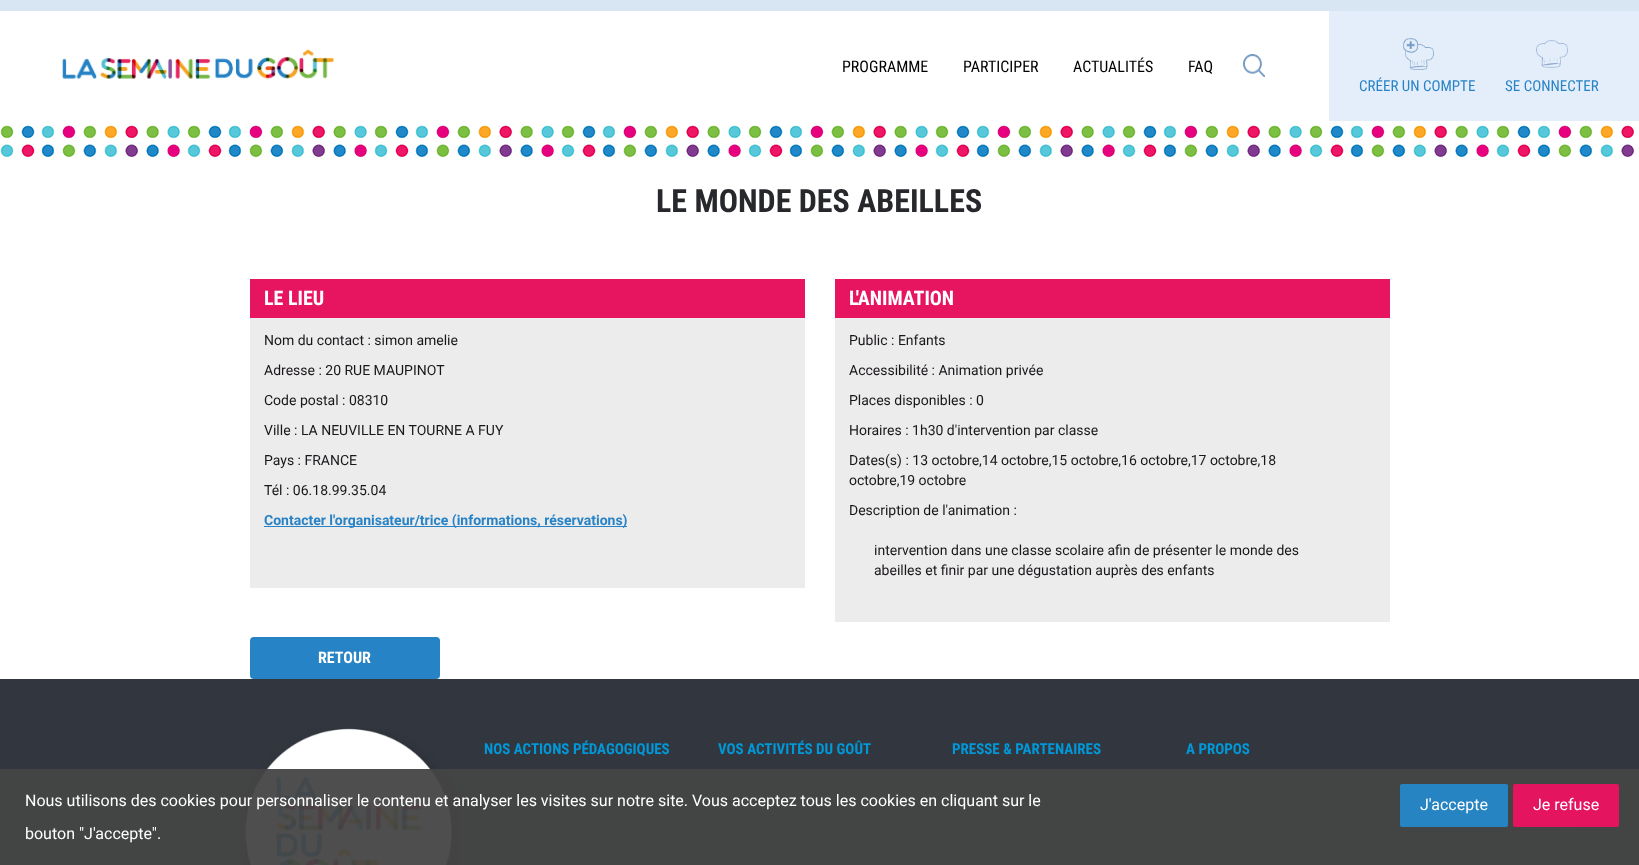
<svg xmlns="http://www.w3.org/2000/svg" width="1639" height="865">
	<defs>
		<clipPath id="clip1"><path d="M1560 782H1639V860H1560ZM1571 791H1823C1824 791 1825 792 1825 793V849C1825 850 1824 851 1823 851H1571C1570 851 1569 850 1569 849V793C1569 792 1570 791 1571 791Z" clip-rule="evenodd" /></clipPath>
	</defs>
	<rect width="100%" height="100%" fill="#FFFFFF" />
	<image x="0" y="124" width="1638" height="35" href="assets/img1.png" />
	<rect x="0" y="0" width="1639" height="11" fill="#D8E5F2" />
	<image x="62" y="49" width="273" height="30" href="assets/img2.png" />
	<g font-family="'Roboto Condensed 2'" font-size="16" fill="#000000">
		<text x="842" y="72">PROGRAMME</text>
		<text x="963" y="72">PARTICIPER</text>
		<text x="1073" y="72">ACTUALITÉS</text>
		<text x="1188" y="72">FAQ</text>
	</g>
	<image x="1243" y="54" width="22" height="23" href="assets/img3.png" />
	<rect x="1329" y="11" width="310" height="110" fill="#E3EEFA" />
	<image x="1403" y="38" width="31" height="32" href="assets/img4.png" />
	<text x="1359" y="91" font-family="Roboto Condensed" font-size="15" fill="#2883C6">CRÉER UN COMPTE</text>
	<image x="1536" y="40" width="32" height="28" href="assets/img5.png" />
	<text x="1505" y="91" font-family="Roboto Condensed" font-size="15" fill="#2883C6">SE CONNECTER</text>
	<text x="656" y="212" font-family="Roboto Condensed" font-size="32" font-weight="700" fill="#27282B">LE MONDE DES ABEILLES</text>
	<rect x="250" y="318" width="555" height="270" fill="#ECECEC" />
	<rect x="250" y="279" width="555" height="39" fill="#E71460" />
	<text x="264" y="305" font-family="'Roboto Condensed 2'" font-size="20" font-weight="700" fill="#FFFFFF">LE LIEU</text>
	<g font-family="Roboto" font-size="14" fill="#1A171B">
		<text x="264" y="345">Nom du contact : simon amelie</text>
		<text x="264" y="375">Adresse : 20 RUE MAUPINOT</text>
		<text x="264" y="405">Code postal : 08310</text>
		<text x="264" y="435">Ville : LA NEUVILLE EN TOURNE A FUY</text>
		<text x="264" y="465">Pays : FRANCE</text>
		<text x="264" y="495">Tél : 06.18.99.35.04</text>
	</g>
	<rect x="264" y="526" width="363" height="1" fill="#2883C6" />
	<text x="264" y="525" font-family="Roboto" font-size="14" font-weight="700" fill="#2883C6">Contacter l'organisateur/trice (informations, réservations)</text>
	<rect x="835" y="318" width="555" height="304" fill="#ECECEC" />
	<rect x="835" y="279" width="555" height="39" fill="#E71460" />
	<text x="849" y="305" font-family="'Roboto Condensed 2'" font-size="20" font-weight="700" fill="#FFFFFF">L'ANIMATION</text>
	<g font-family="Roboto" font-size="14" fill="#1A171B">
		<text x="849" y="345">Public : Enfants</text>
		<text x="849" y="375">Accessibilité : Animation privée</text>
		<text x="849" y="405">Places disponibles : 0</text>
		<text x="849" y="435">Horaires : 1h30 d'intervention par classe</text>
		<text x="849" y="465">Dates(s) : 13 octobre,14 octobre,15 octobre,16 octobre,17 octobre,18</text>
		<text x="849" y="485">octobre,19 octobre</text>
		<text x="849" y="515">Description de l'animation :</text>
		<text x="874" y="555">intervention dans une classe scolaire afin de présenter le monde des</text>
		<text x="874" y="575">abeilles et finir par une dégustation auprès des enfants</text>
	</g>
	<rect x="250" y="637" width="190" height="42" rx="4" fill="#2684C6" />
	<text x="318" y="663" font-family="Roboto Condensed" font-size="16" font-weight="700" fill="#FFFFFF">RETOUR</text>
	<rect x="0" y="679" width="1639" height="186" fill="#32373F" />
	<image x="245" y="728" width="213" height="137" href="assets/img6.png" />
	<g font-family="Roboto Condensed" font-size="15" font-weight="700" fill="#0098D8">
		<text x="484" y="754">NOS ACTIONS PÉDAGOGIQUES</text>
		<text x="718" y="754">VOS ACTIVITÉS DU GOÛT</text>
		<text x="952" y="754">PRESSE &amp; PARTENAIRES</text>
		<text x="1186" y="754">A PROPOS</text>
	</g>
	<g clip-path="url(#clip1)">
		<rect x="1569" y="791" width="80" height="60" rx="2" fill="#808080" filter="blur(2.5px)" />
	</g>
	<rect x="0" y="769" width="1639" height="96" fill="#444444" fill-opacity="0.95" />
	<g font-family="Roboto" font-size="16" fill="#FFFFFF">
		<text x="25" y="806">Nous utilisons des cookies pour personnaliser le contenu et analyser les visites sur notre site. Vous acceptez tous les cookies en cliquant sur le</text>
		<text x="25" y="839">bouton "J'accepte".</text>
	</g>
	<rect x="1400" y="784" width="108" height="43" rx="2" fill="#2784C2" />
	<text x="1420" y="810" font-family="Roboto" font-size="16" fill="#FFFFFF">J'accepte</text>
	<rect x="1513" y="784" width="106" height="43" rx="2" fill="#E4145F" />
	<text x="1533" y="810" font-family="Roboto" font-size="16" fill="#FFFFFF">Je refuse</text>
</svg>
